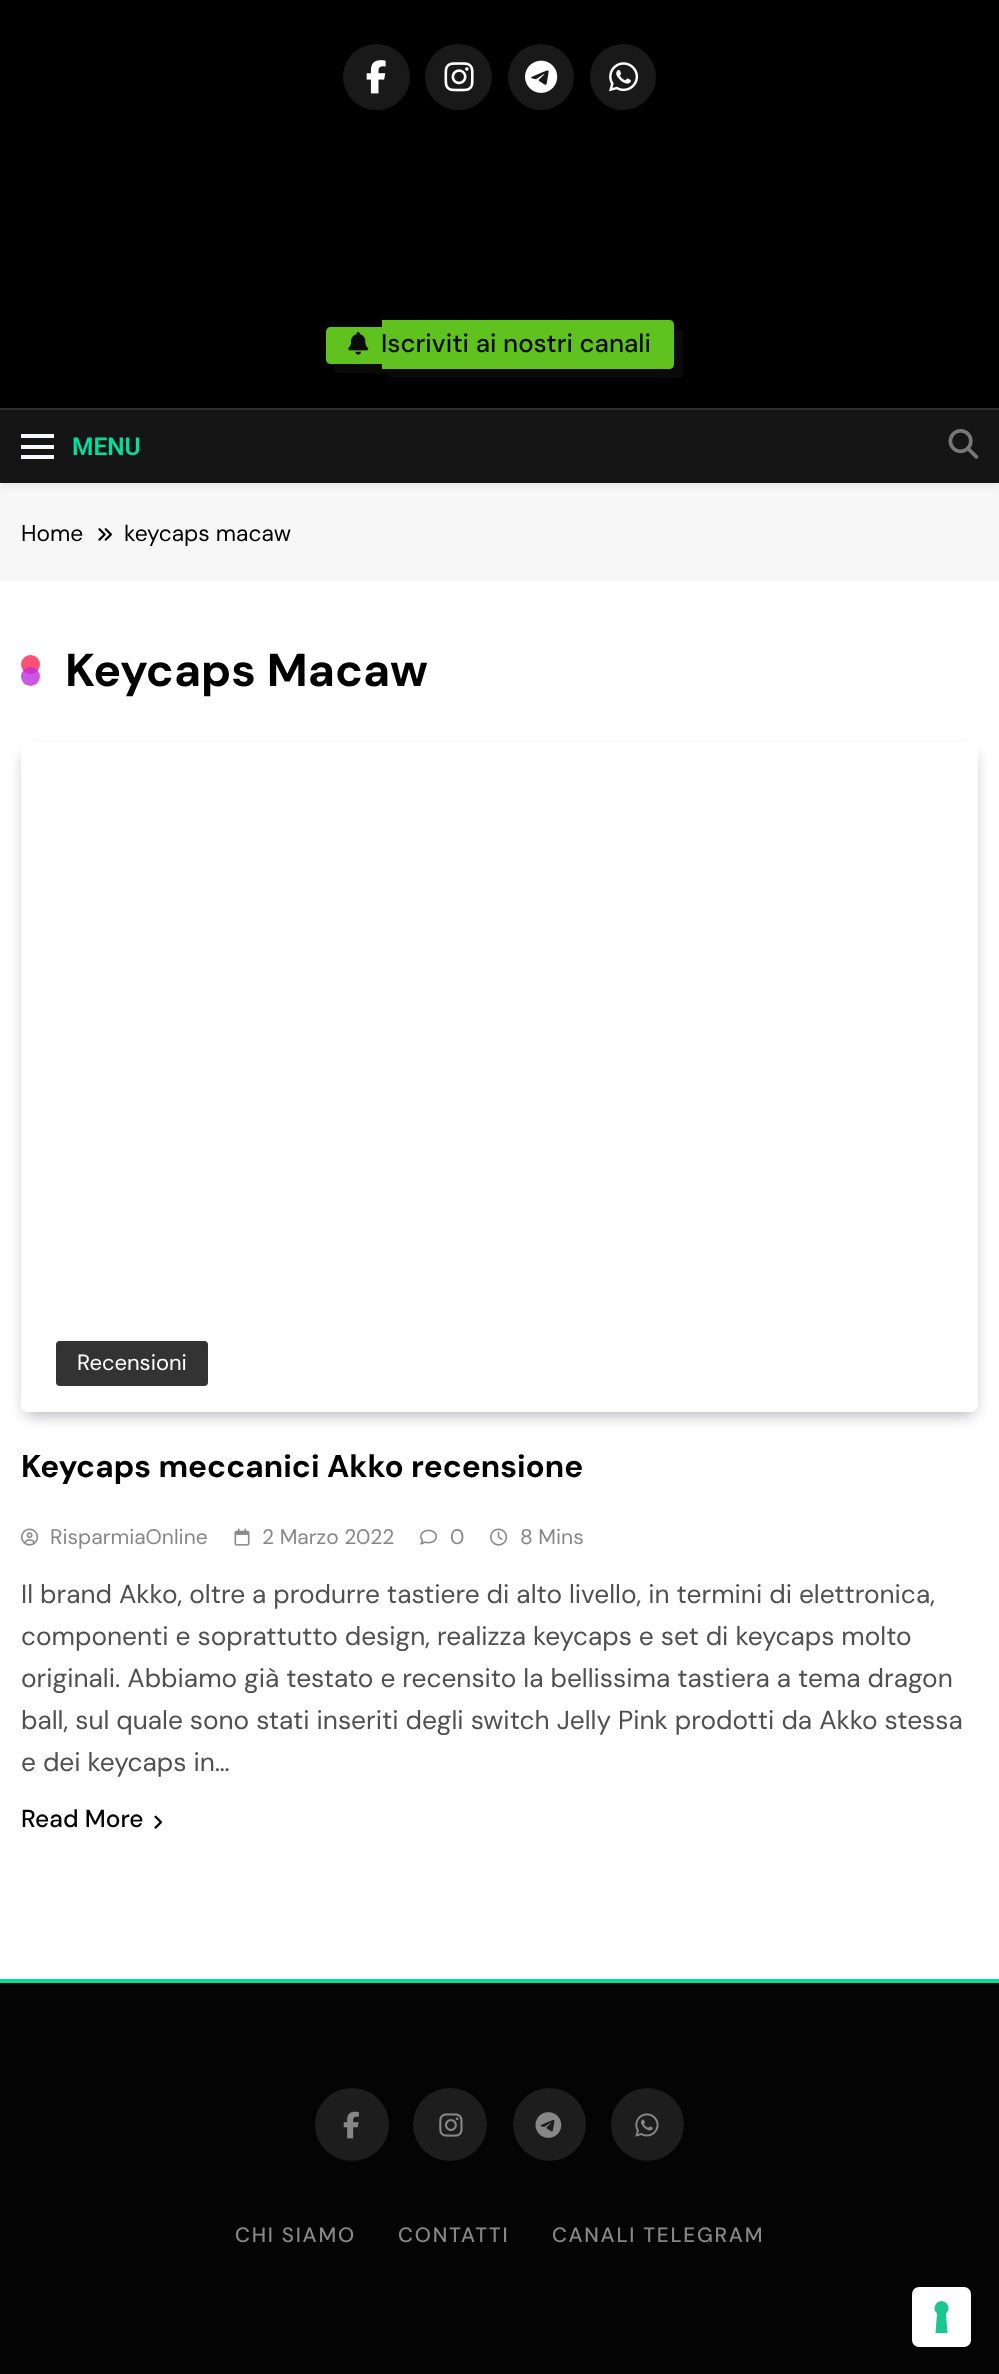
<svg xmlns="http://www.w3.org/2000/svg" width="999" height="2374">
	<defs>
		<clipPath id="clip1"><path d="M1 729H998V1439H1ZM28 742H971C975 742 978 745 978 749V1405C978 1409 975 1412 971 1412H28C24 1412 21 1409 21 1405V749C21 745 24 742 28 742Z" clip-rule="evenodd" /></clipPath>
	</defs>
	<rect width="100%" height="100%" fill="#FFFFFF" />
	<rect x="0" y="483" width="999" height="98" fill="#F7F7F7" />
	<rect x="0" y="5" width="999" height="483" fill="#000000" fill-opacity="0.05" filter="blur(3.5px)" />
	<rect x="0" y="0" width="999" height="408" fill="#000000" />
	<rect x="343" y="44" width="67" height="66" rx="33" fill="#191919" />
	<image x="366" y="60" width="20" height="34" href="assets/img1.png" />
	<rect x="425" y="44" width="67" height="66" rx="33" fill="#191919" />
	<image x="444" y="62" width="30" height="30" href="assets/img2.png" />
	<circle cx="541" cy="77" r="33" fill="#191919" />
	<image x="525" y="60" width="33" height="33" href="assets/img3.png" />
	<circle cx="623" cy="77" r="33" fill="#191919" />
	<image x="609" y="62" width="30" height="30" href="assets/img4.png" />
	<path d="M334 364V368C334 371 336 373 339 373H390V336H382V364Z" fill="#0B0A0A" />
	<path d="M331 327H382V364H331C328 364 326 362 326 359V332C326 329 328 327 331 327Z" fill="#60C21E" />
	<path d="M390 369V378H678C681 378 683 376 683 373V334C683 331 681 329 678 329H674V364C674 367 671 369 668 369Z" fill="#0B0A0A" />
	<path d="M382 320H669C672 320 674 322 674 325V364C674 367 672 369 669 369H382Z" fill="#60C21E" />
	<image x="348" y="331" width="21" height="24" href="assets/img5.png" />
	<text x="381" y="352" font-family="DM Sans" font-size="25.75" font-weight="500" fill="#0A0A0A">Iscriviti ai nostri canali</text>
	<rect x="0" y="410" width="999" height="73" fill="#151515" />
	<rect x="0" y="408" width="999" height="2" fill="#2C2C2C" />
	<rect x="21" y="434" width="33" height="4" fill="#F8F8FF" />
	<rect x="21" y="445" width="33" height="4" fill="#F8F8FF" />
	<rect x="21" y="455" width="33" height="4" fill="#F8F8FF" />
	<text x="72" y="455" font-family="Roboto" font-size="24.5" font-weight="600" fill="#02DE9C">MENU</text>
	<image x="948" y="429" width="31" height="30" href="assets/img6.png" />
	<text x="21" y="541" font-family="DM Sans" font-size="22.75" fill="#000000">Home</text>
	<image x="98" y="528" width="14" height="13" href="assets/img7.png" />
	<text x="124" y="541" font-family="DM Sans" font-size="22.75" fill="#000000">keycaps macaw</text>
	<circle cx="30.5" cy="664.5" r="9.5" fill="#FF5075" />
	<text x="65" y="686" font-family="DM Sans" font-size="46.25" font-weight="700" fill="#000000">Keycaps Macaw</text>
	<circle cx="30.5" cy="676.5" r="9.5" fill="#BE2EDD" fill-opacity="0.8" />
	<g clip-path="url(#clip1)">
		<rect x="26" y="754" width="947" height="660" rx="2" fill="#070A19" fill-opacity="0.35" filter="blur(8px)" />
	</g>
	<rect x="56" y="1341" width="152" height="45" rx="4" fill="#333333" />
	<text x="77" y="1370" font-family="DM Sans" font-size="22" fill="#FFFFFF">Recensioni</text>
	<text x="21" y="1477" font-family="DM Sans" font-size="31.5" font-weight="700" fill="#000000">Keycaps meccanici Akko recensione</text>
	<image x="21" y="1528" width="18" height="18" href="assets/img8.png" />
	<text x="50" y="1544" font-family="DM Sans" font-size="21" fill="#878787">RisparmiaOnline</text>
	<image x="234" y="1528" width="16" height="18" href="assets/img9.png" />
	<text x="262" y="1544" font-family="DM Sans" font-size="21" fill="#878787">2 Marzo 2022</text>
	<image x="420" y="1529" width="18" height="16" href="assets/img10.png" />
	<text x="450" y="1544" font-family="DM Sans" font-size="21" fill="#878787">0</text>
	<image x="490" y="1528" width="18" height="18" href="assets/img11.png" />
	<text x="520" y="1544" font-family="DM Sans" font-size="21" fill="#878787">8 Mins</text>
	<g font-family="DM Sans" font-size="26.25" fill="#505050">
		<text x="21" y="1603">Il brand Akko, oltre a produrre tastiere di alto livello, in termini di elettronica,</text>
		<text x="21" y="1645">componenti e soprattutto design, realizza keycaps e set di keycaps molto</text>
		<text x="21" y="1687">originali. Abbiamo già testato e recensito la bellissima tastiera a tema dragon</text>
		<text x="21" y="1729">ball, sul quale sono stati inseriti degli switch Jelly Pink prodotti da Akko stessa</text>
		<text x="21" y="1771">e dei keycaps in…</text>
	</g>
	<text x="21" y="1827" font-family="DM Sans" font-size="24.5" font-weight="500" fill="#000000">Read More</text>
	<image x="154" y="1815" width="9" height="14" href="assets/img12.png" />
	<rect x="0" y="1979" width="999" height="4" fill="#02DE9C" />
	<rect x="0" y="1983" width="999" height="391" fill="#040404" />
	<rect x="315" y="2088" width="74" height="73" rx="36.5" fill="#1D1D1D" />
	<image x="343" y="2111" width="16" height="28" href="assets/img13.png" />
	<rect x="413" y="2088" width="74" height="73" rx="36.5" fill="#1D1D1D" />
	<image x="439" y="2113" width="24" height="24" href="assets/img14.png" />
	<circle cx="549.5" cy="2124.5" r="36.5" fill="#1D1D1D" />
	<image x="535" y="2112" width="27" height="26" href="assets/img15.png" />
	<circle cx="647.5" cy="2124.5" r="36.5" fill="#1D1D1D" />
	<image x="635" y="2113" width="24" height="24" href="assets/img16.png" />
	<g font-family="DM Sans" font-size="20.75" font-weight="500" letter-spacing="1.75" fill="#878787">
		<text x="235" y="2242">CHI SIAMO</text>
		<text x="398" y="2242">CONTATTI</text>
		<text x="552" y="2242">CANALI TELEGRAM</text>
	</g>
	<rect x="912" y="2287" width="59" height="60" rx="7" fill="#FFFFFF" />
	<path d="M941.5 2301C948 2301.5 951 2309.5 946 2313.5L947.5 2333H935.5L937 2313.5C932 2309.5 935 2301.5 941.5 2301Z" fill="#1CC691" fill-rule="evenodd" />
</svg>
